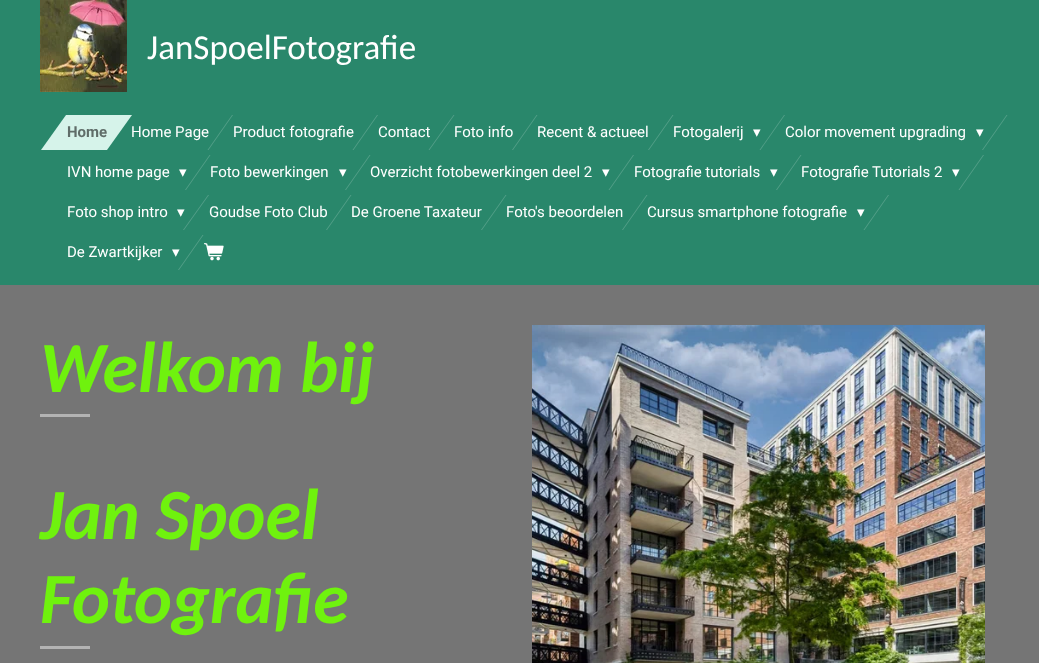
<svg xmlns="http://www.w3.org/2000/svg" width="1039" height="663">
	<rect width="100%" height="100%" fill="#757575" />
	<rect x="0" y="0" width="1039" height="285" fill="#29876B" />
	<image x="40" y="0" width="87" height="92" href="assets/img1.png" />
	<text x="147" y="59" font-family="Carlito" font-size="35" fill="#FFFFFF">JanSpoelFotografie</text>
	<path d="M232 115H233L208.5 150H207.5Z" fill="#549F89" />
	<text x="131" y="137" font-family="Roboto" font-size="15" fill="#FFFFFF">Home Page</text>
	<path d="M66 115H132L107 150H41Z" fill="#D6F3EA" />
	<text x="67" y="137" font-family="Roboto" font-size="15" font-weight="700" fill="#606D69">Home</text>
	<path d="M377 115H378L353.5 150H352.5Z" fill="#549F89" />
	<text x="233" y="137" font-family="Roboto" font-size="15" fill="#FFFFFF">Product fotografie</text>
	<path d="M453.5 115H454.5L429.5 150H428.5Z" fill="#549F89" />
	<text x="378" y="137" font-family="Roboto" font-size="15" fill="#FFFFFF">Contact</text>
	<path d="M536.5 115H537.5L513 150H512Z" fill="#549F89" />
	<text x="454" y="137" font-family="Roboto" font-size="15" fill="#FFFFFF">Foto info</text>
	<path d="M672.5 115H673.5L649 150H648Z" fill="#549F89" />
	<g font-family="Roboto" font-size="15" fill="#FFFFFF">
		<text x="537" y="137">Recent &amp; actueel</text>
		<text x="673" y="137">Fotogalerij</text>
	</g>
	<path d="M784 115H785L760.5 150H759.5Z" fill="#549F89" />
	<text x="753" y="137" font-family="DejaVu Sans" font-size="15" fill="#FFFFFF">▾</text>
	<text x="785" y="137" font-family="Roboto" font-size="15" fill="#FFFFFF">Color movement upgrading</text>
	<path d="M1006.5 115H1007.5L983 150H982Z" fill="#549F89" />
	<text x="976" y="137" font-family="DejaVu Sans" font-size="15" fill="#FFFFFF">▾</text>
	<text x="67" y="177" font-family="Roboto" font-size="15" fill="#FFFFFF">IVN home page</text>
	<path d="M209.5 155H210.5L186 190H185Z" fill="#549F89" />
	<text x="179" y="177" font-family="DejaVu Sans" font-size="15" fill="#FFFFFF">▾</text>
	<text x="210" y="177" font-family="Roboto" font-size="15" fill="#FFFFFF">Foto bewerkingen</text>
	<path d="M369.5 155H370.5L346 190H345Z" fill="#549F89" />
	<text x="339" y="177" font-family="DejaVu Sans" font-size="15" fill="#FFFFFF">▾</text>
	<text x="370" y="177" font-family="Roboto" font-size="15" fill="#FFFFFF">Overzicht fotobewerkingen deel 2</text>
	<path d="M633 155H634L609.5 190H608.5Z" fill="#549F89" />
	<text x="602" y="177" font-family="DejaVu Sans" font-size="15" fill="#FFFFFF">▾</text>
	<text x="634" y="177" font-family="Roboto" font-size="15" fill="#FFFFFF">Fotografie tutorials</text>
	<path d="M800.5 155H801.5L777 190H776Z" fill="#549F89" />
	<text x="770" y="177" font-family="DejaVu Sans" font-size="15" fill="#FFFFFF">▾</text>
	<text x="801" y="177" font-family="Roboto" font-size="15" fill="#FFFFFF">Fotografie Tutorials 2</text>
	<path d="M983 155H984L959.5 190H958.5Z" fill="#549F89" />
	<text x="952" y="177" font-family="DejaVu Sans" font-size="15" fill="#FFFFFF">▾</text>
	<text x="67" y="217" font-family="Roboto" font-size="15" fill="#FFFFFF">Foto shop intro</text>
	<path d="M208 195H209L184 230H183Z" fill="#549F89" />
	<text x="177" y="217" font-family="DejaVu Sans" font-size="15" fill="#FFFFFF">▾</text>
	<path d="M350.5 195H351.5L327 230H326Z" fill="#549F89" />
	<text x="209" y="217" font-family="Roboto" font-size="15" fill="#FFFFFF">Goudse Foto Club</text>
	<path d="M505.5 195H506.5L482 230H481Z" fill="#549F89" />
	<text x="351" y="217" font-family="Roboto" font-size="15" fill="#FFFFFF">De Groene Taxateur</text>
	<path d="M646.5 195H647.5L623 230H622Z" fill="#549F89" />
	<g font-family="Roboto" font-size="15" fill="#FFFFFF">
		<text x="506" y="217">Foto's beoordelen</text>
		<text x="647" y="217">Cursus smartphone fotografie</text>
	</g>
	<path d="M888 195H889L864.5 230H863.5Z" fill="#549F89" />
	<text x="857" y="217" font-family="DejaVu Sans" font-size="15" fill="#FFFFFF">▾</text>
	<text x="67" y="257" font-family="Roboto" font-size="15" fill="#FFFFFF">De Zwartkijker</text>
	<path d="M202.5 235H203.5L179 270H178Z" fill="#549F89" />
	<text x="172" y="257" font-family="DejaVu Sans" font-size="15" fill="#FFFFFF">▾</text>
	<image x="204" y="243" width="20" height="18" href="assets/img2.png" />
	<text x="40" y="392" font-family="Carlito" font-size="72" font-weight="700" font-style="italic" fill="#6FF20E">Welkom bij</text>
	<rect x="40" y="414" width="50" height="3" fill="#B3B3B3" />
	<g font-family="Carlito" font-size="72" font-weight="700" font-style="italic" fill="#6FF20E">
		<text x="40" y="539">Jan Spoel</text>
		<text x="40" y="623">Fotografie</text>
	</g>
	<rect x="40" y="646" width="50" height="3" fill="#B3B3B3" />
	<image x="532" y="325" width="453" height="338" href="assets/img3.png" />
</svg>
